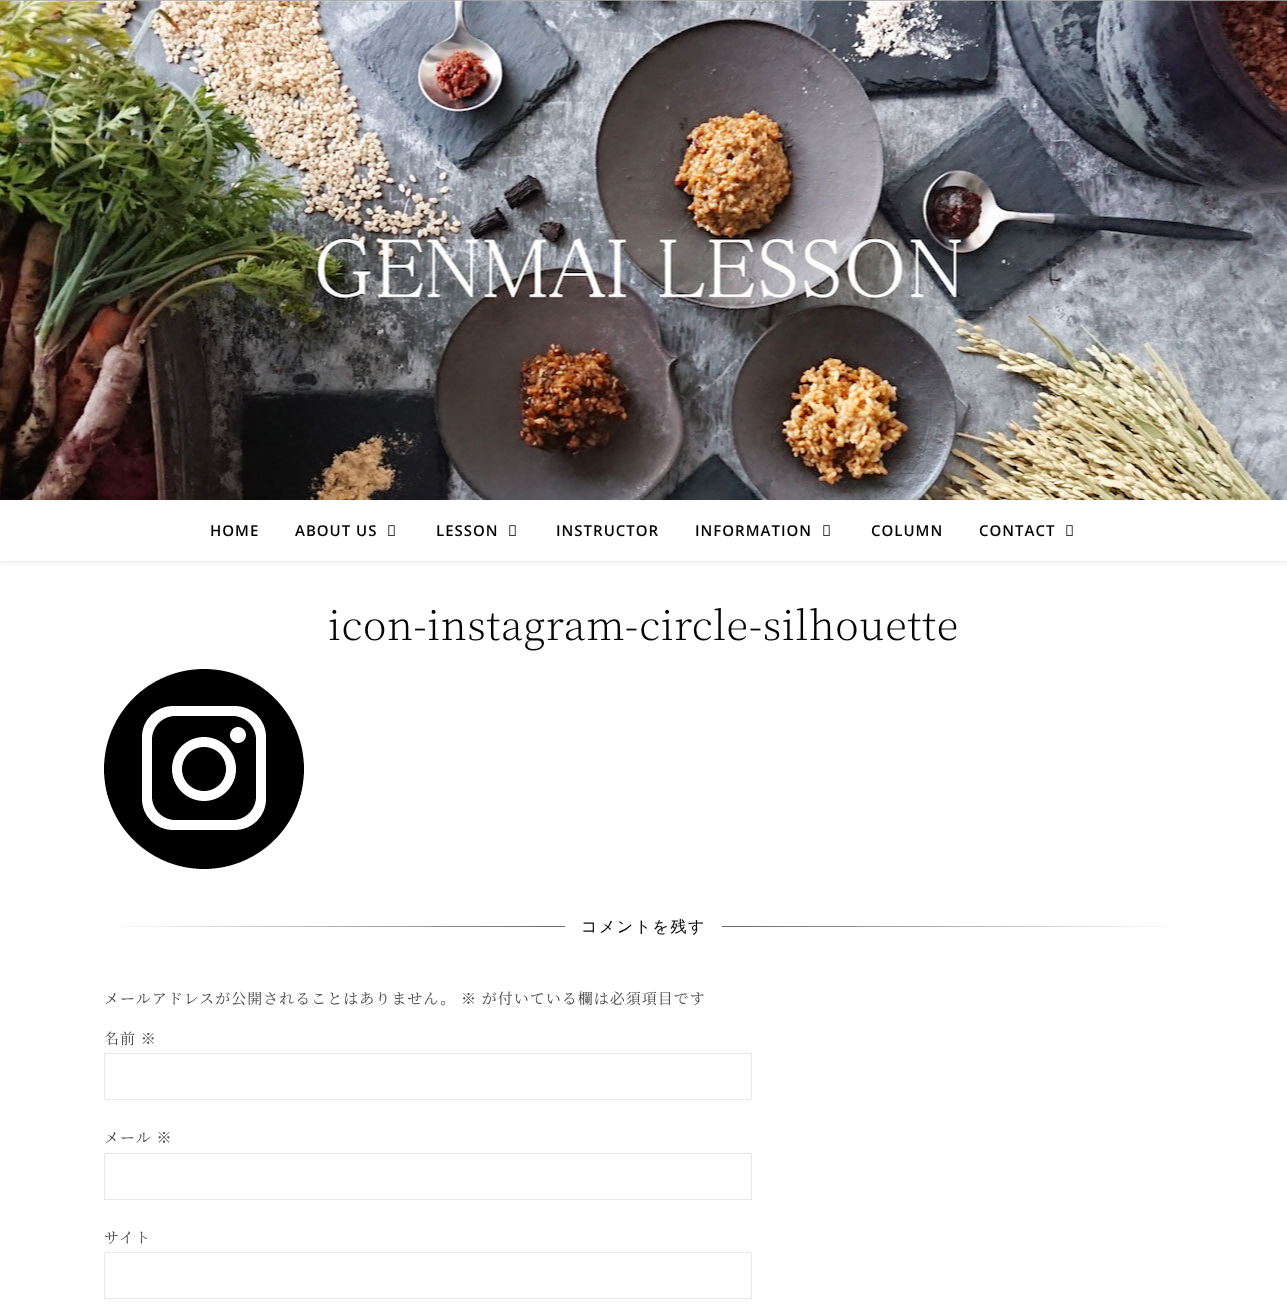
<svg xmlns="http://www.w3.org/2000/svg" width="1287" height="1315">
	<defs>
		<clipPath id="clip1"><path d="M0 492H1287V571H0ZM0 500H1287V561H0Z" clip-rule="evenodd" /></clipPath>
		<linearGradient id="g1" gradientUnits="userSpaceOnUse" x1="565" y1="927" x2="104" y2="927"><stop offset="0" stop-color="#666666" /><stop offset="1" stop-color="#FFFFFF" /></linearGradient>
		<linearGradient id="g2" gradientUnits="userSpaceOnUse" x1="722" y1="927" x2="1184" y2="927"><stop offset="0" stop-color="#666666" /><stop offset="1" stop-color="#FFFFFF" /></linearGradient>
	</defs>
	<rect width="100%" height="100%" fill="#FFFFFF" />
	<image x="0" y="0" width="1287" height="500" href="assets/img1.png" />
	<g clip-path="url(#clip1)">
		<rect x="0" y="501" width="1287" height="61" fill="#000000" fill-opacity="0.1" filter="blur(2.5px)" />
	</g>
	<g font-family="Open Sans" font-size="15" font-weight="600" letter-spacing="1" fill="#030303">
		<text x="210" y="536">HOME</text>
		<text x="295" y="536">ABOUT US</text>
	</g>
	<image x="388" y="525" width="7" height="11" href="assets/img2.png" />
	<text x="436" y="536" font-family="Open Sans" font-size="15" font-weight="600" letter-spacing="1" fill="#030303">LESSON</text>
	<image x="509" y="525" width="7" height="11" href="assets/img2.png" />
	<g font-family="Open Sans" font-size="15" font-weight="600" letter-spacing="1" fill="#030303">
		<text x="556" y="536">INSTRUCTOR</text>
		<text x="695" y="536">INFORMATION</text>
	</g>
	<image x="823" y="525" width="7" height="11" href="assets/img2.png" />
	<g font-family="Open Sans" font-size="15" font-weight="600" letter-spacing="1" fill="#030303">
		<text x="871" y="536">COLUMN</text>
		<text x="979" y="536">CONTACT</text>
	</g>
	<image x="1066" y="525" width="7" height="11" href="assets/img2.png" />
	<text x="328" y="640" font-family="Noto Serif JP" font-size="40" font-weight="200" letter-spacing="0.5" fill="#030303">icon-instagram-circle-silhouette</text>
	<image x="104" y="669" width="200" height="200" href="assets/img3.png" />
	<rect x="104" y="926" width="461" height="1" fill="url(#g1)" />
	<text x="581" y="932" font-family="WenQuanYi Zen Hei" font-size="16" font-weight="500" letter-spacing="1.5" fill="#030303">コメントを残す</text>
	<rect x="722" y="926" width="462" height="1" fill="url(#g2)" />
	<g font-family="Noto Serif JP" font-size="15" letter-spacing="1" fill="#464646">
		<text x="104" y="1004">メールアドレスが公開されることはありません。 ※ が付いている欄は必須項目です</text>
		<text x="104" y="1044">名前 ※</text>
	</g>
	<rect x="104.5" y="1053.5" width="647" height="46" fill="none" stroke="#E8E8E8" />
	<text x="104" y="1143" font-family="Noto Serif JP" font-size="15" letter-spacing="1" fill="#464646">メール ※</text>
	<rect x="104.5" y="1153.5" width="647" height="46" fill="none" stroke="#E8E8E8" />
	<text x="104" y="1243" font-family="Noto Serif JP" font-size="15" letter-spacing="1" fill="#464646">サイト</text>
	<rect x="104.5" y="1252.5" width="647" height="46" fill="none" stroke="#E8E8E8" />
</svg>
